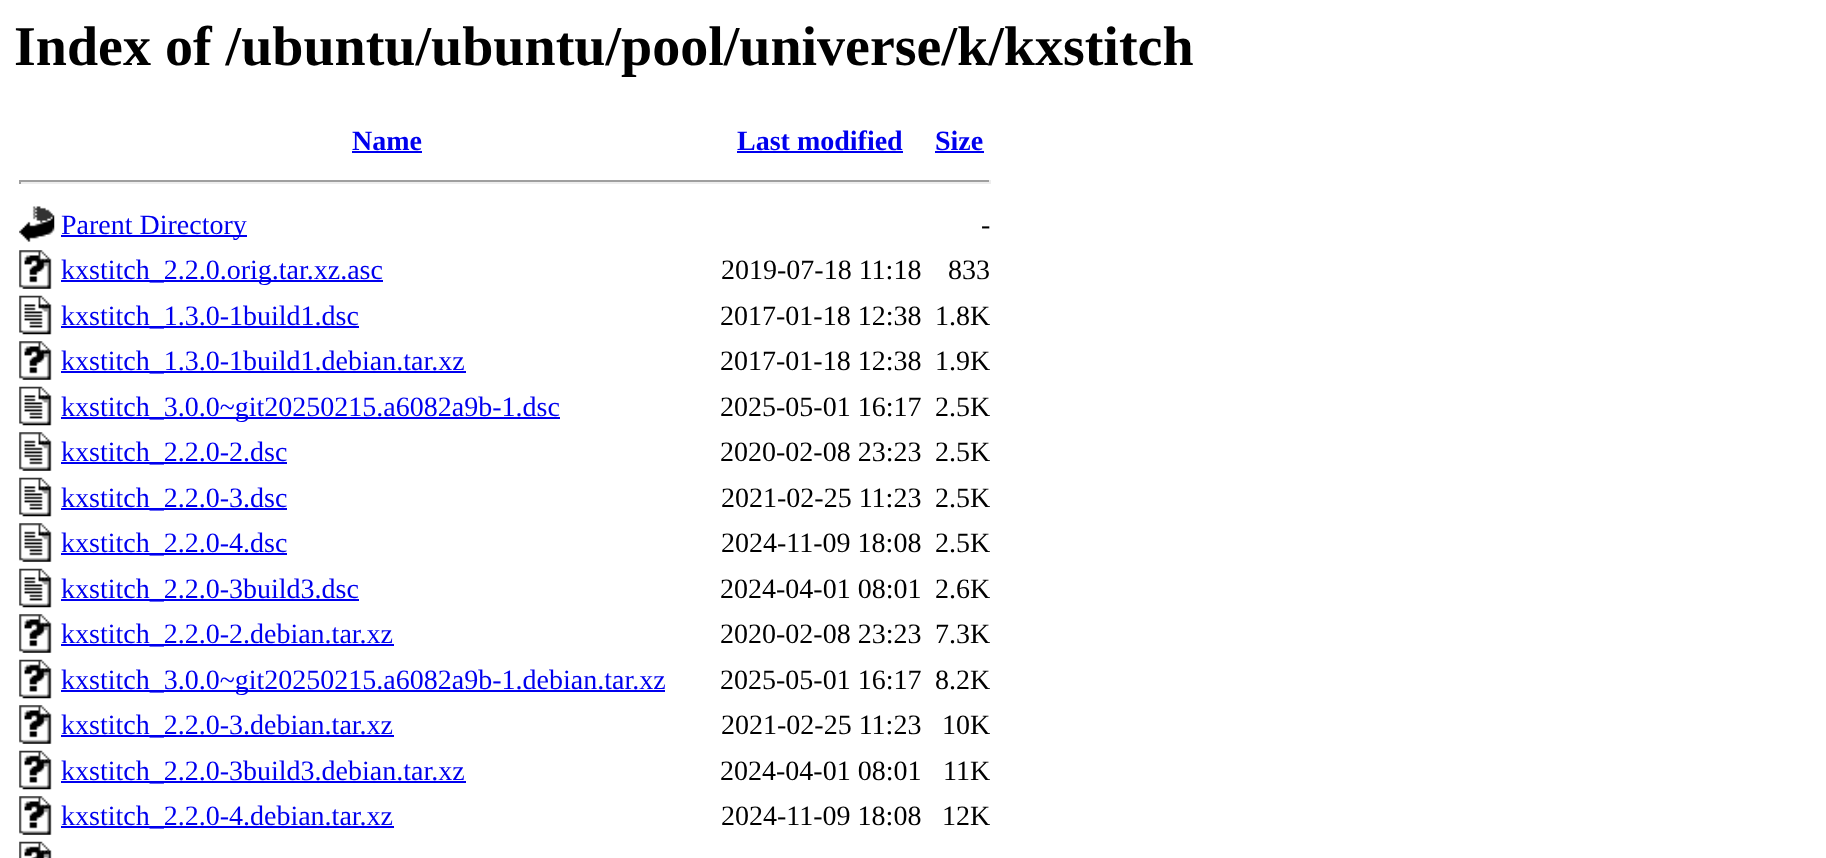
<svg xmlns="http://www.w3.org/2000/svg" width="1826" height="858">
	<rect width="100%" height="100%" fill="#FFFFFF" />
	<text x="14" y="65" font-family="Liberation Serif" font-size="56" font-weight="700" fill="#000000">Index of /ubuntu/ubuntu/pool/universe/k/kxstitch</text>
	<text x="352" y="150" font-family="Liberation Serif" font-size="28" font-weight="700" fill="#0000EE">Name</text>
	<rect x="352" y="151" width="70" height="2" fill="#0000EE" />
	<text x="737" y="150" font-family="Liberation Serif" font-size="28" font-weight="700" fill="#0000EE">Last modified</text>
	<rect x="737" y="151" width="166" height="2" fill="#0000EE" />
	<text x="935" y="150" font-family="Liberation Serif" font-size="28" font-weight="700" fill="#0000EE">Size</text>
	<rect x="935" y="151" width="49" height="2" fill="#0000EE" />
	<rect x="19" y="180" width="972" height="2" fill="#9F9F9F" />
	<rect x="989" y="180" width="2" height="4" fill="#EEEEEE" />
	<rect x="19" y="182" width="972" height="2" fill="#EEEEEE" />
	<rect x="19" y="180" width="2" height="4" fill="#9F9F9F" />
	<image x="19" y="206" width="36" height="36" href="assets/img1.png" />
	<rect x="61" y="235" width="186" height="2" fill="#0000EE" />
	<text x="61" y="234" font-family="Liberation Serif" font-size="28" fill="#0000EE">Parent Directory</text>
	<text x="981" y="234" font-family="Liberation Serif" font-size="28" fill="#000000">-</text>
	<image x="19" y="250" width="33" height="39" href="assets/img2.png" />
	<rect x="61" y="280" width="322" height="2" fill="#0000EE" />
	<text x="61" y="279" font-family="Liberation Serif" font-size="28" fill="#0000EE">kxstitch_2.2.0.orig.tar.xz.asc</text>
	<g font-family="Liberation Serif" font-size="28" fill="#000000">
		<text x="721" y="279">2019-07-18 11:18</text>
		<text x="948" y="279">833</text>
	</g>
	<image x="19" y="295" width="33" height="40" href="assets/img3.png" />
	<rect x="61" y="326" width="298" height="2" fill="#0000EE" />
	<text x="61" y="325" font-family="Liberation Serif" font-size="28" fill="#0000EE">kxstitch_1.3.0-1build1.dsc</text>
	<g font-family="Liberation Serif" font-size="28" fill="#000000">
		<text x="720" y="325">2017-01-18 12:38</text>
		<text x="935" y="325">1.8K</text>
	</g>
	<image x="19" y="341" width="33" height="39" href="assets/img2.png" />
	<rect x="61" y="371" width="405" height="2" fill="#0000EE" />
	<text x="61" y="370" font-family="Liberation Serif" font-size="28" fill="#0000EE">kxstitch_1.3.0-1build1.debian.tar.xz</text>
	<g font-family="Liberation Serif" font-size="28" fill="#000000">
		<text x="720" y="370">2017-01-18 12:38</text>
		<text x="935" y="370">1.9K</text>
	</g>
	<image x="19" y="386" width="33" height="40" href="assets/img3.png" />
	<rect x="61" y="417" width="499" height="2" fill="#0000EE" />
	<text x="61" y="416" font-family="Liberation Serif" font-size="28" fill="#0000EE">kxstitch_3.0.0~git20250215.a6082a9b-1.dsc</text>
	<g font-family="Liberation Serif" font-size="28" fill="#000000">
		<text x="720" y="416">2025-05-01 16:17</text>
		<text x="935" y="416">2.5K</text>
	</g>
	<image x="19" y="432" width="33" height="39" href="assets/img4.png" />
	<rect x="61" y="462" width="226" height="2" fill="#0000EE" />
	<text x="61" y="461" font-family="Liberation Serif" font-size="28" fill="#0000EE">kxstitch_2.2.0-2.dsc</text>
	<g font-family="Liberation Serif" font-size="28" fill="#000000">
		<text x="720" y="461">2020-02-08 23:23</text>
		<text x="935" y="461">2.5K</text>
	</g>
	<image x="19" y="477" width="33" height="40" href="assets/img3.png" />
	<rect x="61" y="508" width="226" height="2" fill="#0000EE" />
	<text x="61" y="507" font-family="Liberation Serif" font-size="28" fill="#0000EE">kxstitch_2.2.0-3.dsc</text>
	<g font-family="Liberation Serif" font-size="28" fill="#000000">
		<text x="721" y="507">2021-02-25 11:23</text>
		<text x="935" y="507">2.5K</text>
	</g>
	<image x="19" y="523" width="33" height="39" href="assets/img4.png" />
	<rect x="61" y="553" width="226" height="2" fill="#0000EE" />
	<text x="61" y="552" font-family="Liberation Serif" font-size="28" fill="#0000EE">kxstitch_2.2.0-4.dsc</text>
	<g font-family="Liberation Serif" font-size="28" fill="#000000">
		<text x="721" y="552">2024-11-09 18:08</text>
		<text x="935" y="552">2.5K</text>
	</g>
	<image x="19" y="568" width="33" height="40" href="assets/img3.png" />
	<rect x="61" y="599" width="298" height="2" fill="#0000EE" />
	<text x="61" y="598" font-family="Liberation Serif" font-size="28" fill="#0000EE">kxstitch_2.2.0-3build3.dsc</text>
	<g font-family="Liberation Serif" font-size="28" fill="#000000">
		<text x="720" y="598">2024-04-01 08:01</text>
		<text x="935" y="598">2.6K</text>
	</g>
	<image x="19" y="614" width="33" height="39" href="assets/img2.png" />
	<rect x="61" y="644" width="333" height="2" fill="#0000EE" />
	<text x="61" y="643" font-family="Liberation Serif" font-size="28" fill="#0000EE">kxstitch_2.2.0-2.debian.tar.xz</text>
	<g font-family="Liberation Serif" font-size="28" fill="#000000">
		<text x="720" y="643">2020-02-08 23:23</text>
		<text x="935" y="643">7.3K</text>
	</g>
	<image x="19" y="659" width="33" height="40" href="assets/img5.png" />
	<rect x="61" y="690" width="604" height="2" fill="#0000EE" />
	<text x="61" y="689" font-family="Liberation Serif" font-size="28" fill="#0000EE">kxstitch_3.0.0~git20250215.a6082a9b-1.debian.tar.xz</text>
	<g font-family="Liberation Serif" font-size="28" fill="#000000">
		<text x="720" y="689">2025-05-01 16:17</text>
		<text x="935" y="689">8.2K</text>
	</g>
	<image x="19" y="705" width="33" height="39" href="assets/img2.png" />
	<rect x="61" y="735" width="333" height="2" fill="#0000EE" />
	<text x="61" y="734" font-family="Liberation Serif" font-size="28" fill="#0000EE">kxstitch_2.2.0-3.debian.tar.xz</text>
	<g font-family="Liberation Serif" font-size="28" fill="#000000">
		<text x="721" y="734">2021-02-25 11:23</text>
		<text x="942" y="734">10K</text>
	</g>
	<image x="19" y="750" width="33" height="40" href="assets/img5.png" />
	<rect x="61" y="781" width="405" height="2" fill="#0000EE" />
	<text x="61" y="780" font-family="Liberation Serif" font-size="28" fill="#0000EE">kxstitch_2.2.0-3build3.debian.tar.xz</text>
	<g font-family="Liberation Serif" font-size="28" fill="#000000">
		<text x="720" y="780">2024-04-01 08:01</text>
		<text x="943" y="780">11K</text>
	</g>
	<image x="19" y="796" width="33" height="39" href="assets/img2.png" />
	<rect x="61" y="826" width="333" height="2" fill="#0000EE" />
	<text x="61" y="825" font-family="Liberation Serif" font-size="28" fill="#0000EE">kxstitch_2.2.0-4.debian.tar.xz</text>
	<g font-family="Liberation Serif" font-size="28" fill="#000000">
		<text x="721" y="825">2024-11-09 18:08</text>
		<text x="942" y="825">12K</text>
	</g>
	<image x="19" y="841" width="33" height="17" href="assets/img6.png" />
</svg>
